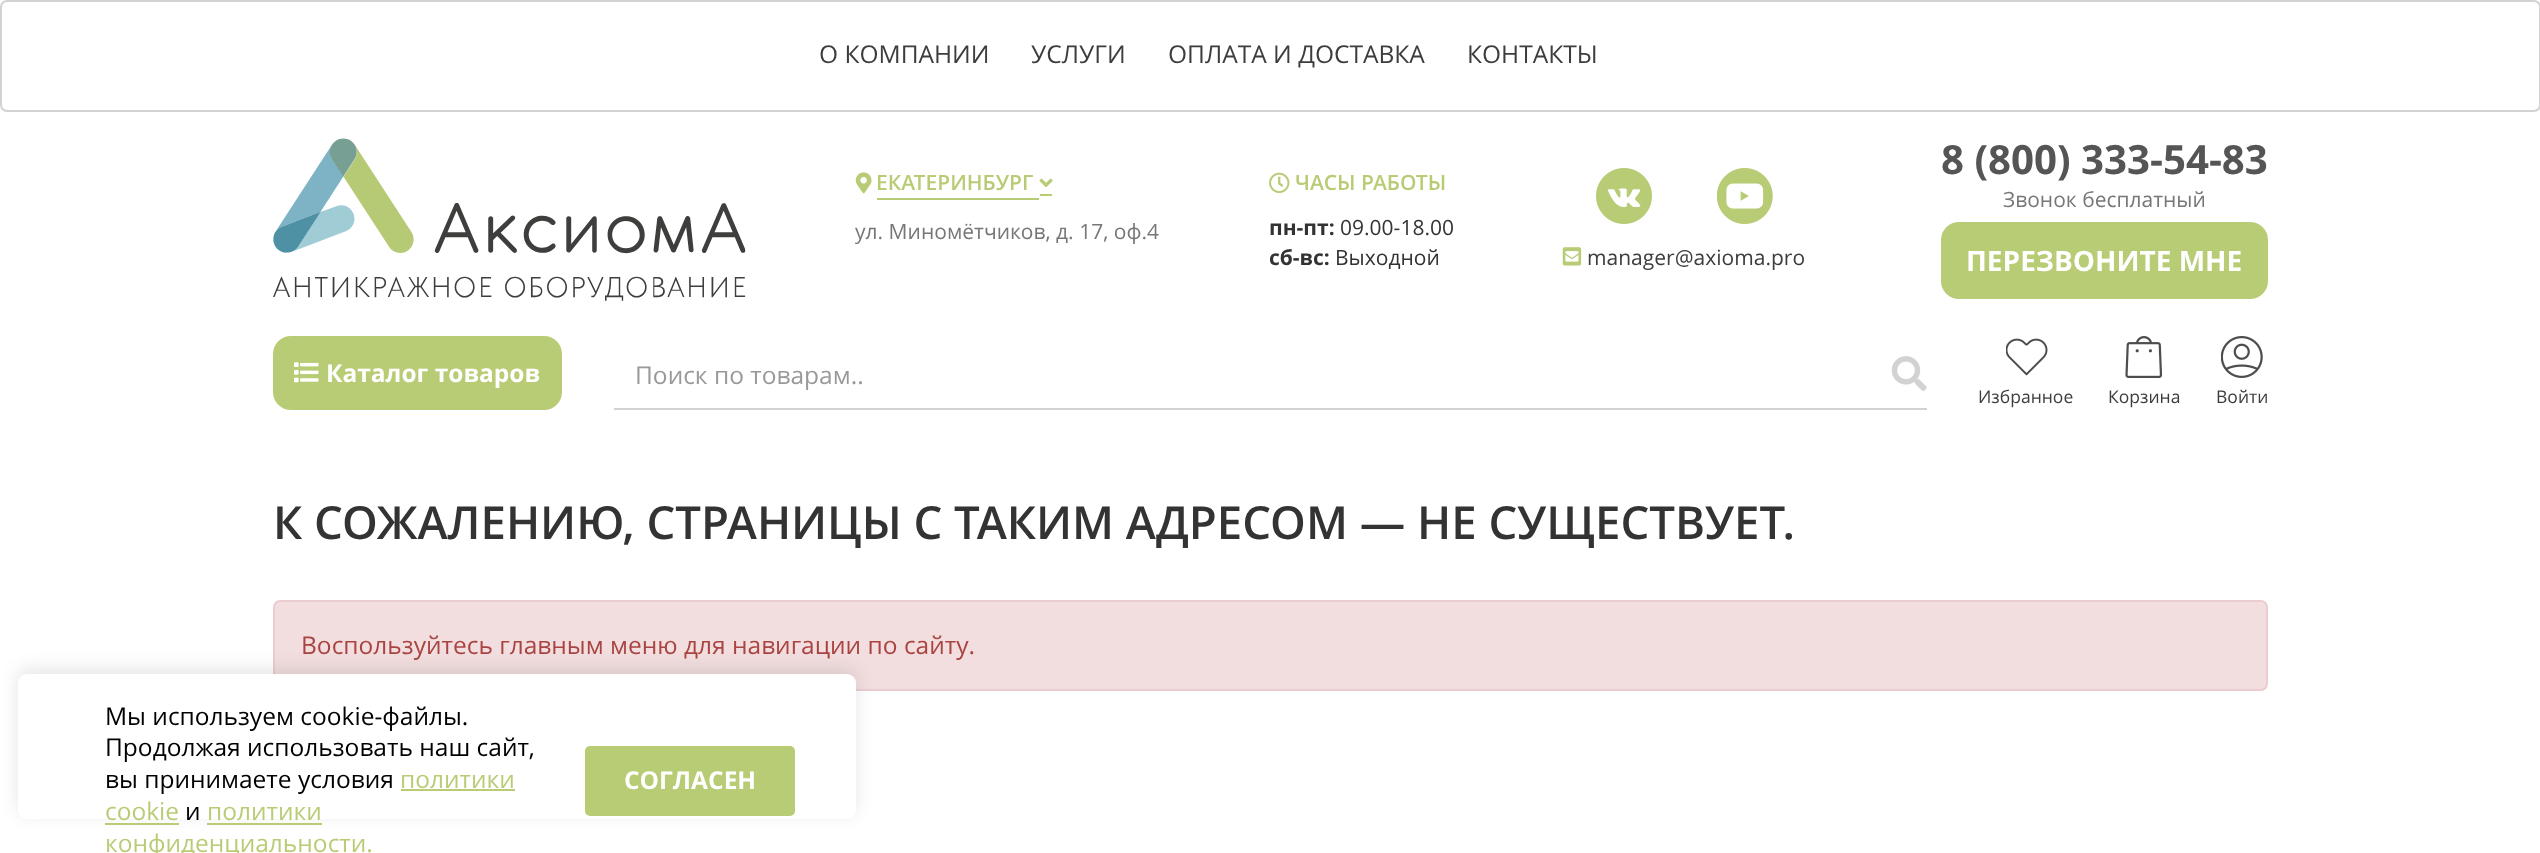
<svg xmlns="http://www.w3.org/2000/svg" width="2540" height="853">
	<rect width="100%" height="100%" fill="#FFFFFF" />
	<rect x="1" y="1" width="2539" height="110" rx="6" fill="none" stroke="#D2D2D2" stroke-width="2" />
	<g font-family="Open Sans" font-size="24.5" fill="#3D3D3D">
		<text x="819" y="63">О КОМПАНИИ</text>
		<text x="1031" y="63">УСЛУГИ</text>
		<text x="1168" y="63">ОПЛАТА И ДОСТАВКА</text>
		<text x="1467" y="63">КОНТАКТЫ</text>
	</g>
	<image x="273" y="138" width="473" height="163" href="assets/img1.png" />
	<image x="855" y="172" width="17" height="22" href="assets/img2.png" />
	<rect x="877" y="198" width="162" height="2" fill="#B8CC76" />
	<rect x="1040" y="194" width="12" height="2" fill="#B8CC76" />
	<text x="876" y="190" font-family="Open Sans" font-size="21" font-weight="600" fill="#B8CC76">ЕКАТЕРИНБУРГ</text>
	<image x="1039" y="178" width="14" height="9" href="assets/img3.png" />
	<text x="855" y="239" font-family="Open Sans" font-size="21" fill="#777777">ул. Миномётчиков, д. 17, оф.4</text>
	<image x="1269" y="172" width="21" height="21" href="assets/img4.png" />
	<text x="1295" y="190" font-family="Open Sans" font-size="21" font-weight="600" fill="#B8CC76">ЧАСЫ РАБОТЫ</text>
	<text x="1269" y="235" font-family="Open Sans" font-size="21" font-weight="700" fill="#333333">пн-пт:</text>
	<text x="1340" y="235" font-family="Open Sans" font-size="21" fill="#333333">09.00-18.00</text>
	<text x="1269" y="265" font-family="Open Sans" font-size="21" font-weight="700" fill="#333333">сб-вс:</text>
	<text x="1335" y="265" font-family="Open Sans" font-size="21" fill="#333333">Выходной</text>
	<image x="1596" y="168" width="56" height="56" href="assets/img5.png" />
	<image x="1717" y="168" width="56" height="56" href="assets/img6.png" />
	<image x="1562" y="247" width="20" height="19" href="assets/img7.png" />
	<text x="1587" y="265" font-family="Open Sans" font-size="21" fill="#3D3D3D">manager@axioma.pro</text>
	<text x="1941" y="174" font-family="Open Sans" font-size="40.25" font-weight="700" fill="#555555">8 (800) 333-54-83</text>
	<text x="2003" y="207" font-family="Open Sans" font-size="21" fill="#777777">Звонок бесплатный</text>
	<rect x="1941" y="222" width="327" height="77" rx="18" fill="#B8CC76" />
	<text x="1966" y="271" font-family="Open Sans" font-size="28" font-weight="700" fill="#FFFFFF">ПЕРЕЗВОНИТЕ МНЕ</text>
	<rect x="273" y="336" width="289" height="74" rx="18" fill="#B8CC76" />
	<image x="294" y="362" width="25" height="21" href="assets/img8.png" />
	<text x="326" y="382" font-family="Open Sans" font-size="24.5" font-weight="700" fill="#FFFFFF">Каталог товаров</text>
	<rect x="614" y="408" width="1313" height="2" fill="#D2D2D2" />
	<text x="635" y="384" font-family="Open Sans" font-size="24.5" fill="#999999">Поиск по товарам..</text>
	<image x="1891" y="356" width="36" height="35" href="assets/img9.png" />
	<image x="2006" y="338" width="42" height="38" href="assets/img10.png" />
	<text x="1978" y="403" font-family="Open Sans" font-size="17.5" fill="#3D3D3D">Избранное</text>
	<image x="2125" y="336" width="38" height="42" href="assets/img11.png" />
	<text x="2108" y="403" font-family="Open Sans" font-size="17.5" fill="#3D3D3D">Корзина</text>
	<image x="2221" y="336" width="42" height="42" href="assets/img12.png" />
	<text x="2216" y="403" font-family="Open Sans" font-size="17.5" fill="#3D3D3D">Войти</text>
	<text x="273" y="539" font-family="Open Sans" font-size="45.5" font-weight="600" fill="#333333">К СОЖАЛЕНИЮ, СТРАНИЦЫ С ТАКИМ АДРЕСОМ — НЕ СУЩЕСТВУЕТ.</text>
	<rect x="274" y="601" width="1993" height="89" rx="6" fill="#F2DEDE" stroke="#EBCCD1" stroke-width="2" />
	<text x="301" y="654" font-family="Open Sans" font-size="24.5" fill="#A94442">Воспользуйтесь главным меню для навигации по сайту.</text>
	<rect x="18" y="669" width="838" height="145" rx="9" fill="#000000" fill-opacity="0.1" filter="blur(9px)" />
	<rect x="18" y="674" width="838" height="145" rx="9" fill="#FFFFFF" />
	<g font-family="Open Sans" font-size="24.5" fill="#000000">
		<text x="105" y="725">Мы используем cookie-файлы.</text>
		<text x="105" y="756">Продолжая использовать наш сайт,</text>
		<text x="105" y="788">вы принимаете условия</text>
	</g>
	<text x="400" y="788" font-family="Open Sans" font-size="24.5" fill="#B8CC76">политики</text>
	<rect x="401" y="789" width="114" height="2" fill="#B8CC76" />
	<text x="105" y="820" font-family="Open Sans" font-size="24.5" fill="#B8CC76">cookie</text>
	<rect x="105" y="823" width="74" height="2" fill="#B8CC76" />
	<text x="185" y="820" font-family="Open Sans" font-size="24.5" fill="#000000">и</text>
	<text x="207" y="820" font-family="Open Sans" font-size="24.5" fill="#B8CC76">политики</text>
	<rect x="207" y="823" width="115" height="2" fill="#B8CC76" />
	<text x="105" y="852" font-family="Open Sans" font-size="24.5" fill="#B8CC76">конфиденциальности.</text>
	<rect x="585" y="746" width="210" height="70" rx="5" fill="#B8CC76" />
	<text x="624" y="789" font-family="Open Sans" font-size="24.5" font-weight="700" fill="#FFFFFF">СОГЛАСЕН</text>
</svg>
